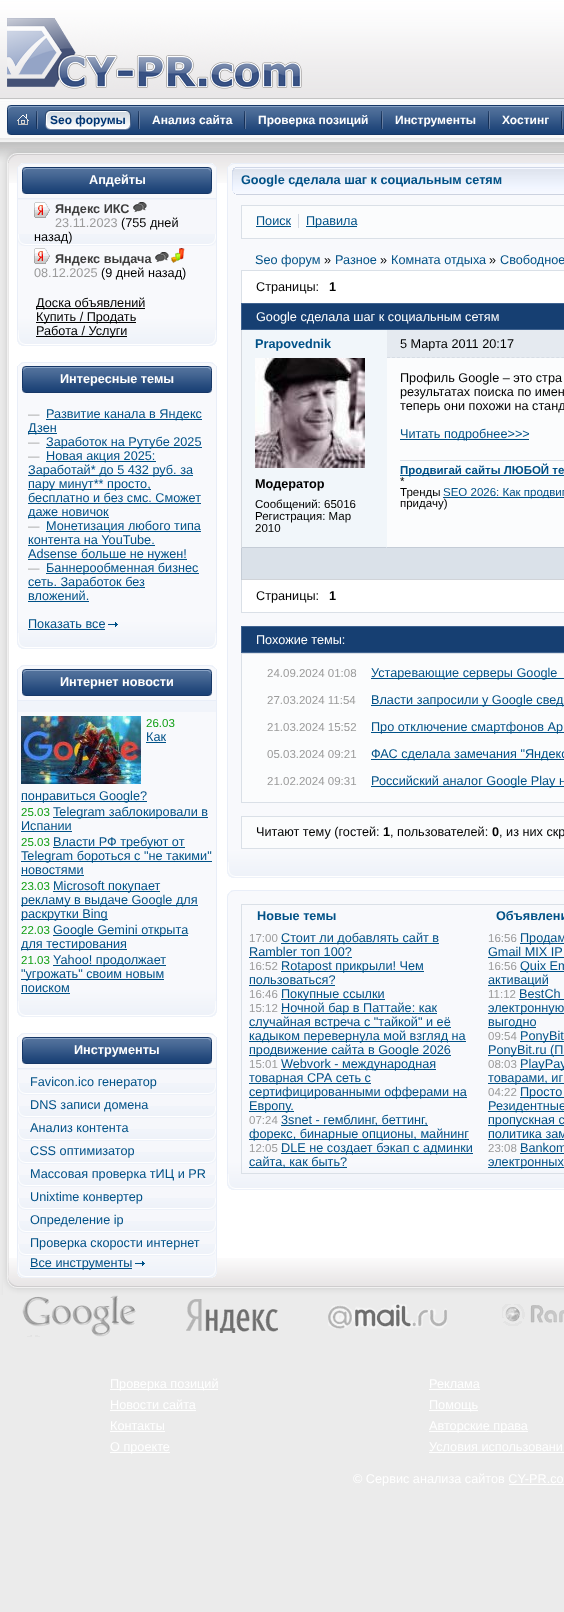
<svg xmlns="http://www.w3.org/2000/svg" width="564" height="1612">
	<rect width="100%" height="100%" fill="#EBEBEB" />
	<image x="0" y="0" width="564" height="148" href="assets/img1.png" />
	<image x="7" y="18" width="295" height="71" href="assets/img2.png" />
	<image x="12" y="105" width="552" height="30" href="assets/img4.png" />
	<image x="17" y="114" width="12" height="11" href="assets/img3.png" />
	<image x="7" y="105" width="5" height="30" href="assets/img5.png" />
	<image x="36" y="111" width="2" height="18" href="assets/img6.png" />
	<image x="45" y="110" width="5" height="20" href="assets/img7.png" />
	<image x="50" y="110" width="81" height="20" href="assets/img8.png" />
	<text x="50" y="124" font-family="Liberation Sans" font-size="12" font-weight="700" fill="#003573">Seo форумы</text>
	<image x="138" y="111" width="2" height="18" href="assets/img6.png" />
	<text x="152" y="124" font-family="Liberation Sans" font-size="12" font-weight="700" fill="#FFFFFF">Анализ сайта</text>
	<image x="244" y="111" width="2" height="18" href="assets/img6.png" />
	<text x="258" y="124" font-family="Liberation Sans" font-size="12" font-weight="700" fill="#FFFFFF">Проверка позиций</text>
	<image x="381" y="111" width="2" height="18" href="assets/img6.png" />
	<text x="395" y="124" font-family="Liberation Sans" font-size="12" font-weight="700" fill="#FFFFFF">Инструменты</text>
	<image x="488" y="111" width="2" height="18" href="assets/img6.png" />
	<text x="502" y="124" font-family="Liberation Sans" font-size="12" font-weight="700" fill="#FFFFFF">Хостинг</text>
	<image x="561" y="111" width="2" height="18" href="assets/img6.png" />
	<rect x="9" y="183" width="555" height="1075" fill="#FFFFFF" />
	<image x="9" y="148" width="555" height="35" href="assets/img9.png" />
	<image x="9" y="1258" width="555" height="37" href="assets/img10.png" />
	<image x="0" y="163" width="9" height="1132" href="assets/img11.png" />
	<image x="0" y="148" width="17" height="15" href="assets/img12.png" />
	<image x="18" y="163" width="7" height="4" href="assets/img13.png" />
	<rect x="25" y="164" width="184" height="3" fill="#F8F9FC" />
	<rect x="25" y="163" width="184" height="1" fill="#E9EEF8" />
	<image x="209" y="163" width="7" height="4" href="assets/img14.png" />
	<rect x="18" y="167" width="198" height="31" fill="#F8F9FC" />
	<image x="22" y="167" width="190" height="28" href="assets/img15.png" />
	<image x="22" y="167" width="4" height="27" href="assets/img16.png" />
	<text x="89" y="184" font-family="Liberation Sans" font-size="12.7" font-weight="700" fill="#FFFFFF">Апдейты</text>
	<image x="208" y="167" width="4" height="27" href="assets/img17.png" />
	<rect x="18" y="246" width="198" height="73" fill="#F8F9FC" />
	<image x="18" y="319" width="198" height="19" href="assets/img18.png" />
	<rect x="216" y="167" width="1" height="171" fill="#E9EEF8" />
	<rect x="17" y="167" width="1" height="171" fill="#E9EEF8" />
	<rect x="18" y="199" width="198" height="1" fill="#F1F4FA" />
	<rect x="18" y="198" width="198" height="1" fill="#E9EEF8" />
	<rect x="18" y="200" width="198" height="34" fill="#F6F7FB" />
	<image x="18" y="234" width="198" height="12" href="assets/img19.png" />
	<image x="34" y="202" width="16" height="16" href="assets/img20.png" />
	<text x="55" y="213" font-family="Liberation Sans" font-size="12.7" font-weight="700" fill="#3D3D3D">Яндекс ИКС</text>
	<image x="133" y="202" width="14" height="11" href="assets/img21.png" />
	<text x="55" y="227" font-family="Liberation Sans" font-size="12.7" fill="#9B9B9B">23.11.2023</text>
	<g font-family="Liberation Sans" font-size="12.7" fill="#000000">
		<text x="121" y="227">(755 дней</text>
		<text x="34" y="241">назад)</text>
	</g>
	<image x="34" y="248" width="16" height="16" href="assets/img22.png" />
	<text x="55" y="263" font-family="Liberation Sans" font-size="12.7" font-weight="700" fill="#3D3D3D">Яндекс выдача</text>
	<image x="155" y="252" width="14" height="11" href="assets/img23.png" />
	<image x="171" y="248" width="14" height="15" href="assets/img24.png" />
	<text x="34" y="277" font-family="Liberation Sans" font-size="12.7" fill="#9B9B9B">08.12.2025</text>
	<text x="101" y="277" font-family="Liberation Sans" font-size="12.7" fill="#000000">(9 дней назад)</text>
	<rect x="36" y="308" width="109" height="1" fill="#000000" />
	<text x="36" y="307" font-family="Liberation Sans" font-size="12.7" fill="#000000">Доска объявлений</text>
	<rect x="36" y="322" width="100" height="1" fill="#000000" />
	<text x="36" y="321" font-family="Liberation Sans" font-size="12.7" fill="#000000">Купить / Продать</text>
	<rect x="36" y="336" width="91" height="1" fill="#000000" />
	<text x="36" y="335" font-family="Liberation Sans" font-size="12.7" fill="#000000">Работа / Услуги</text>
	<image x="17" y="330" width="8" height="16" href="assets/img25.png" />
	<image x="25" y="338" width="184" height="8" href="assets/img26.png" />
	<image x="209" y="330" width="8" height="16" href="assets/img27.png" />
	<image x="18" y="362" width="7" height="4" href="assets/img28.png" />
	<rect x="25" y="363" width="184" height="3" fill="#F8F9FC" />
	<rect x="25" y="362" width="184" height="1" fill="#E9EEF8" />
	<image x="209" y="362" width="7" height="4" href="assets/img29.png" />
	<rect x="18" y="366" width="198" height="256" fill="#F8F9FC" />
	<image x="22" y="366" width="190" height="28" href="assets/img15.png" />
	<image x="22" y="366" width="4" height="27" href="assets/img16.png" />
	<text x="60" y="383" font-family="Liberation Sans" font-size="12.7" font-weight="700" fill="#FFFFFF">Интересные темы</text>
	<image x="208" y="366" width="4" height="27" href="assets/img17.png" />
	<image x="18" y="622" width="198" height="19" href="assets/img18.png" />
	<rect x="216" y="366" width="1" height="275" fill="#E9EEF8" />
	<rect x="17" y="366" width="1" height="275" fill="#E9EEF8" />
	<text x="28" y="418" font-family="Liberation Sans" font-size="11.5" fill="#9B9B9B">—</text>
	<rect x="46" y="419" width="156" height="1" fill="#005187" />
	<text x="46" y="418" font-family="Liberation Sans" font-size="12.7" fill="#005187">Развитие канала в Яндекс</text>
	<rect x="28" y="433" width="29" height="1" fill="#005187" />
	<text x="28" y="432" font-family="Liberation Sans" font-size="12.7" fill="#005187">Дзен</text>
	<text x="28" y="446" font-family="Liberation Sans" font-size="11.5" fill="#9B9B9B">—</text>
	<rect x="46" y="447" width="156" height="1" fill="#005187" />
	<text x="46" y="446" font-family="Liberation Sans" font-size="12.7" fill="#005187">Заработок на Рутубе 2025</text>
	<text x="28" y="460" font-family="Liberation Sans" font-size="11.5" fill="#9B9B9B">—</text>
	<rect x="46" y="461" width="110" height="1" fill="#005187" />
	<text x="46" y="460" font-family="Liberation Sans" font-size="12.7" fill="#005187">Новая акция 2025:</text>
	<rect x="28" y="475" width="165" height="1" fill="#005187" />
	<text x="28" y="474" font-family="Liberation Sans" font-size="12.7" fill="#005187">Заработай* до 5 432 руб. за</text>
	<rect x="28" y="489" width="123" height="1" fill="#005187" />
	<g font-family="Liberation Sans" font-size="12.7" fill="#005187">
		<text x="28" y="488">пару минут** просто,</text>
		<text x="28" y="502">бесплатно и без смс. Сможет</text>
	</g>
	<rect x="28" y="503" width="173" height="1" fill="#005187" />
	<rect x="28" y="517" width="81" height="1" fill="#005187" />
	<text x="28" y="516" font-family="Liberation Sans" font-size="12.7" fill="#005187">даже новичок</text>
	<text x="28" y="530" font-family="Liberation Sans" font-size="11.5" fill="#9B9B9B">—</text>
	<rect x="46" y="531" width="155" height="1" fill="#005187" />
	<g font-family="Liberation Sans" font-size="12.7" fill="#005187">
		<text x="46" y="530">Монетизация любого типа</text>
		<text x="28" y="544">контента на YouTube.</text>
	</g>
	<rect x="28" y="545" width="127" height="1" fill="#005187" />
	<rect x="28" y="559" width="159" height="1" fill="#005187" />
	<text x="28" y="558" font-family="Liberation Sans" font-size="12.7" fill="#005187">Adsense больше не нужен!</text>
	<text x="28" y="572" font-family="Liberation Sans" font-size="11.5" fill="#9B9B9B">—</text>
	<rect x="46" y="573" width="153" height="1" fill="#005187" />
	<text x="46" y="572" font-family="Liberation Sans" font-size="12.7" fill="#005187">Баннерообменная бизнес</text>
	<rect x="28" y="587" width="117" height="1" fill="#005187" />
	<g font-family="Liberation Sans" font-size="12.7" fill="#005187">
		<text x="28" y="586">сеть. Заработок без</text>
		<text x="28" y="600">вложений.</text>
	</g>
	<rect x="28" y="601" width="61" height="1" fill="#005187" />
	<text x="28" y="628" font-family="Liberation Sans" font-size="12.7" fill="#005187">Показать все</text>
	<rect x="28" y="629" width="77" height="1" fill="#005187" />
	<image x="108" y="622" width="10" height="5" href="assets/img30.png" />
	<image x="17" y="633" width="8" height="16" href="assets/img25.png" />
	<image x="25" y="641" width="184" height="8" href="assets/img26.png" />
	<image x="209" y="633" width="8" height="16" href="assets/img27.png" />
	<image x="18" y="665" width="7" height="4" href="assets/img28.png" />
	<rect x="25" y="666" width="184" height="3" fill="#F8F9FC" />
	<rect x="25" y="665" width="184" height="1" fill="#E9EEF8" />
	<image x="209" y="665" width="7" height="4" href="assets/img29.png" />
	<rect x="18" y="669" width="198" height="31" fill="#F8F9FC" />
	<image x="22" y="669" width="190" height="28" href="assets/img15.png" />
	<image x="22" y="669" width="4" height="27" href="assets/img16.png" />
	<text x="60" y="686" font-family="Liberation Sans" font-size="12.7" font-weight="700" fill="#FFFFFF">Интернет новости</text>
	<image x="208" y="669" width="4" height="27" href="assets/img17.png" />
	<rect x="18" y="712" width="198" height="278" fill="#F8F9FC" />
	<image x="18" y="990" width="198" height="19" href="assets/img18.png" />
	<rect x="216" y="669" width="1" height="340" fill="#E9EEF8" />
	<rect x="17" y="669" width="1" height="340" fill="#E9EEF8" />
	<rect x="18" y="701" width="198" height="11" fill="#F1F4FA" />
	<rect x="18" y="700" width="198" height="1" fill="#E9EEF8" />
	<image x="21" y="716" width="120" height="68" href="assets/img31.png" />
	<text x="146" y="727" font-family="Liberation Sans" font-size="11.5" fill="#109F14">26.03</text>
	<text x="146" y="741" font-family="Liberation Sans" font-size="12.7" fill="#005187">Как</text>
	<rect x="146" y="742" width="20" height="1" fill="#005187" />
	<rect x="21" y="801" width="126" height="1" fill="#005187" />
	<text x="21" y="800" font-family="Liberation Sans" font-size="12.7" fill="#005187">понравиться Google?</text>
	<text x="21" y="816" font-family="Liberation Sans" font-size="11.5" fill="#109F14">25.03</text>
	<rect x="53" y="817" width="155" height="1" fill="#005187" />
	<g font-family="Liberation Sans" font-size="12.7" fill="#005187">
		<text x="53" y="816">Telegram заблокировали в</text>
		<text x="21" y="830">Испании</text>
	</g>
	<rect x="21" y="831" width="51" height="1" fill="#005187" />
	<text x="21" y="846" font-family="Liberation Sans" font-size="11.5" fill="#109F14">25.03</text>
	<rect x="53" y="847" width="132" height="1" fill="#005187" />
	<text x="53" y="846" font-family="Liberation Sans" font-size="12.7" fill="#005187">Власти РФ требуют от</text>
	<rect x="21" y="861" width="191" height="1" fill="#005187" />
	<g font-family="Liberation Sans" font-size="12.7" fill="#005187">
		<text x="21" y="860">Telegram бороться с "не такими"</text>
		<text x="21" y="874">новостями</text>
	</g>
	<rect x="21" y="875" width="63" height="1" fill="#005187" />
	<text x="21" y="890" font-family="Liberation Sans" font-size="11.5" fill="#109F14">23.03</text>
	<rect x="53" y="891" width="107" height="1" fill="#005187" />
	<text x="53" y="890" font-family="Liberation Sans" font-size="12.7" fill="#005187">Microsoft покупает</text>
	<rect x="21" y="905" width="177" height="1" fill="#005187" />
	<text x="21" y="904" font-family="Liberation Sans" font-size="12.7" fill="#005187">рекламу в выдаче Google для</text>
	<rect x="21" y="919" width="87" height="1" fill="#005187" />
	<text x="21" y="918" font-family="Liberation Sans" font-size="12.7" fill="#005187">раскрутки Bing</text>
	<text x="21" y="934" font-family="Liberation Sans" font-size="11.5" fill="#109F14">22.03</text>
	<rect x="53" y="935" width="135" height="1" fill="#005187" />
	<text x="53" y="934" font-family="Liberation Sans" font-size="12.7" fill="#005187">Google Gemini открыта</text>
	<rect x="21" y="949" width="106" height="1" fill="#005187" />
	<text x="21" y="948" font-family="Liberation Sans" font-size="12.7" fill="#005187">для тестирования</text>
	<text x="21" y="964" font-family="Liberation Sans" font-size="11.5" fill="#109F14">21.03</text>
	<rect x="53" y="965" width="113" height="1" fill="#005187" />
	<text x="53" y="964" font-family="Liberation Sans" font-size="12.7" fill="#005187">Yahoo! продолжает</text>
	<rect x="21" y="979" width="143" height="1" fill="#005187" />
	<g font-family="Liberation Sans" font-size="12.7" fill="#005187">
		<text x="21" y="978">"угрожать" своим новым</text>
		<text x="21" y="992">поиском</text>
	</g>
	<rect x="21" y="993" width="49" height="1" fill="#005187" />
	<image x="17" y="1001" width="8" height="16" href="assets/img25.png" />
	<image x="25" y="1009" width="184" height="8" href="assets/img26.png" />
	<image x="209" y="1001" width="8" height="16" href="assets/img27.png" />
	<image x="18" y="1033" width="7" height="4" href="assets/img28.png" />
	<rect x="25" y="1034" width="184" height="3" fill="#F8F9FC" />
	<rect x="25" y="1033" width="184" height="1" fill="#E9EEF8" />
	<image x="209" y="1033" width="7" height="4" href="assets/img29.png" />
	<rect x="18" y="1037" width="198" height="31" fill="#F8F9FC" />
	<image x="22" y="1037" width="190" height="28" href="assets/img15.png" />
	<image x="22" y="1037" width="4" height="27" href="assets/img16.png" />
	<text x="74" y="1054" font-family="Liberation Sans" font-size="12.7" font-weight="700" fill="#FFFFFF">Инструменты</text>
	<image x="208" y="1037" width="4" height="27" href="assets/img17.png" />
	<image x="19" y="1256" width="196" height="14" href="assets/img32.png" />
	<rect x="216" y="1037" width="1" height="214" fill="#E9EEF8" />
	<rect x="17" y="1037" width="1" height="214" fill="#E9EEF8" />
	<rect x="18" y="1069" width="198" height="1" fill="#F1F4FA" />
	<rect x="18" y="1068" width="198" height="1" fill="#E9EEF8" />
	<rect x="18" y="1070" width="198" height="174" fill="#F6F7FB" />
	<image x="18" y="1083" width="198" height="12" href="assets/img19.png" />
	<text x="30" y="1086" font-family="Liberation Sans" font-size="12.7" fill="#005187">Favicon.ico генератор</text>
	<image x="18" y="1106" width="198" height="12" href="assets/img19.png" />
	<text x="30" y="1109" font-family="Liberation Sans" font-size="12.7" fill="#005187">DNS записи домена</text>
	<image x="18" y="1129" width="198" height="12" href="assets/img19.png" />
	<text x="30" y="1132" font-family="Liberation Sans" font-size="12.7" fill="#005187">Анализ контента</text>
	<image x="18" y="1152" width="198" height="12" href="assets/img19.png" />
	<text x="30" y="1155" font-family="Liberation Sans" font-size="12.7" fill="#005187">CSS оптимизатор</text>
	<image x="18" y="1175" width="198" height="12" href="assets/img19.png" />
	<text x="30" y="1178" font-family="Liberation Sans" font-size="12.7" fill="#005187">Массовая проверка тИЦ и PR</text>
	<image x="18" y="1198" width="198" height="12" href="assets/img19.png" />
	<text x="30" y="1201" font-family="Liberation Sans" font-size="12.7" fill="#005187">Unixtime конвертер</text>
	<image x="18" y="1221" width="198" height="12" href="assets/img19.png" />
	<text x="30" y="1224" font-family="Liberation Sans" font-size="12.7" fill="#005187">Определение ip</text>
	<image x="18" y="1244" width="198" height="12" href="assets/img19.png" />
	<text x="30" y="1247" font-family="Liberation Sans" font-size="12.7" fill="#005187">Проверка скорости интернет</text>
	<rect x="30" y="1268" width="102" height="1" fill="#005187" />
	<text x="30" y="1267" font-family="Liberation Sans" font-size="12.7" fill="#005187">Все инструменты</text>
	<image x="135" y="1261" width="10" height="5" href="assets/img33.png" />
	<image x="17" y="1251" width="8" height="27" href="assets/img34.png" />
	<image x="25" y="1270" width="184" height="8" href="assets/img26.png" />
	<image x="209" y="1251" width="8" height="27" href="assets/img35.png" />
	<image x="228" y="163" width="7" height="4" href="assets/img13.png" />
	<rect x="235" y="164" width="329" height="3" fill="#F8F9FC" />
	<rect x="235" y="163" width="329" height="1" fill="#E9EEF8" />
	<rect x="228" y="167" width="4" height="28" fill="#F8F9FC" />
	<image x="236" y="167" width="328" height="28" href="assets/img36.png" />
	<image x="232" y="167" width="4" height="28" href="assets/img37.png" />
	<text x="241" y="184" font-family="Liberation Sans" font-size="12.7" font-weight="700" fill="#005187">Google сделала шаг к социальным сетям</text>
	<rect x="228" y="195" width="336" height="656" fill="#F8F9FC" />
	<image x="228" y="851" width="336" height="19" href="assets/img38.png" />
	<rect x="227" y="167" width="1" height="703" fill="#E9EEF8" />
	<rect x="241.5" y="205.5" width="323" height="33" fill="#FBFCFD" stroke="#DAE0E7" />
	<text x="256" y="225" font-family="Liberation Sans" font-size="12.7" fill="#005187">Поиск</text>
	<rect x="298" y="214" width="1" height="14" fill="#D4DAE3" />
	<rect x="256" y="226" width="35" height="1" fill="#005187" />
	<rect x="306" y="226" width="51" height="1" fill="#005187" />
	<g font-family="Liberation Sans" font-size="12.7" fill="#005187">
		<text x="306" y="225">Правила</text>
		<text x="255" y="264">Seo форум</text>
	</g>
	<text x="324" y="264" font-family="Liberation Sans" font-size="12.7" fill="#000000">»</text>
	<text x="335" y="264" font-family="Liberation Sans" font-size="12.7" fill="#005187">Разное</text>
	<text x="380" y="264" font-family="Liberation Sans" font-size="12.7" fill="#000000">»</text>
	<text x="391" y="264" font-family="Liberation Sans" font-size="12.7" fill="#005187">Комната отдыха</text>
	<text x="489" y="264" font-family="Liberation Sans" font-size="12.7" fill="#000000">»</text>
	<text x="500" y="264" font-family="Liberation Sans" font-size="12.7" fill="#005187">Свободное</text>
	<rect x="242" y="271" width="322" height="32" fill="#FFFFFF" />
	<rect x="241" y="270" width="323" height="1" fill="#DAE0E7" />
	<rect x="241" y="270" width="1" height="33" fill="#DAE0E7" />
	<text x="256" y="291" font-family="Liberation Sans" font-size="12.7" fill="#000000">Страницы:</text>
	<text x="329" y="291" font-family="Liberation Sans" font-size="12.7" font-weight="700" fill="#000000">1</text>
	<rect x="241.5" y="303.5" width="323" height="26" fill="#163F72" stroke="#406390" />
	<text x="256" y="321" font-family="Liberation Sans" font-size="12.7" fill="#FFFFFF">Google сделала шаг к социальным сетям</text>
	<rect x="241" y="579" width="323" height="1" fill="#D0D3D8" />
	<rect x="241" y="547" width="323" height="1" fill="#C4CCD6" />
	<rect x="386" y="547" width="1" height="1" fill="#D6DDE5" />
	<rect x="241" y="547" width="1" height="33" fill="#C4CCD6" />
	<rect x="241" y="330" width="1" height="218" fill="#D5DAE0" />
	<rect x="242" y="330" width="145" height="217" fill="#F1F6FA" />
	<text x="255" y="348" font-family="Liberation Sans" font-size="12.7" font-weight="700" fill="#005187">Prapovednik</text>
	<image x="255" y="358" width="110" height="110" href="assets/img39.png" />
	<text x="255" y="488" font-family="Liberation Sans" font-size="12.7" font-weight="700" fill="#000000">Модератор</text>
	<g font-family="Liberation Sans" font-size="11.5" fill="#000000">
		<text x="255" y="508">Сообщений: 65016</text>
		<text x="255" y="520">Регистрация: Мар</text>
		<text x="255" y="532">2010</text>
	</g>
	<rect x="387" y="358" width="177" height="189" fill="#FBFCFD" />
	<rect x="387" y="330" width="177" height="28" fill="#E5EAF0" />
	<path d="M387 357.5H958" fill="none" stroke="#D6DDE5" stroke-dasharray="3 1.98" />
	<g font-family="Liberation Sans" font-size="12.7" fill="#000000">
		<text x="400" y="348">5 Марта 2011 20:17</text>
		<text x="400" y="382">Профиль Google – это стра</text>
		<text x="400" y="396">результатах поиска по имен</text>
		<text x="400" y="410">теперь они похожи на станд</text>
	</g>
	<rect x="400" y="439" width="129" height="1" fill="#005187" />
	<text x="400" y="438" font-family="Liberation Sans" font-size="12.7" fill="#005187">Читать подробнее&gt;&gt;&gt;</text>
	<rect x="400" y="460" width="164" height="1" fill="#D6DDE5" />
	<rect x="400" y="475" width="164" height="1" fill="#005187" />
	<text x="400" y="474" font-family="Liberation Sans" font-size="11.5" font-weight="700" fill="#005187">Продвигай сайты ЛЮБОЙ те</text>
	<g font-family="Liberation Sans" font-size="11.5" fill="#000000">
		<text x="400" y="485">*</text>
		<text x="400" y="496">Тренды</text>
	</g>
	<rect x="443" y="497" width="121" height="1" fill="#005187" />
	<text x="443" y="496" font-family="Liberation Sans" font-size="11.5" fill="#005187">SEO 2026: Как продвиг</text>
	<text x="400" y="507" font-family="Liberation Sans" font-size="11.5" fill="#000000">придачу)</text>
	<rect x="242" y="548" width="322" height="31" fill="#DAE1E9" />
	<rect x="242" y="580" width="322" height="32" fill="#FFFFFF" />
	<rect x="241" y="612" width="323" height="1" fill="#DAE0E7" />
	<rect x="241" y="580" width="1" height="33" fill="#DAE0E7" />
	<text x="256" y="600" font-family="Liberation Sans" font-size="12.7" fill="#000000">Страницы:</text>
	<text x="329" y="600" font-family="Liberation Sans" font-size="12.7" font-weight="700" fill="#000000">1</text>
	<rect x="241.5" y="626.5" width="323" height="26" fill="#163F72" stroke="#406390" />
	<text x="256" y="644" font-family="Liberation Sans" font-size="12.7" fill="#FFFFFF">Похожие темы:</text>
	<rect x="241.5" y="653.5" width="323" height="149" fill="#FBFCFD" stroke="#DAE0E7" />
	<text x="267" y="677" font-family="Liberation Sans" font-size="11.5" fill="#9B9B9B">24.09.2024 01:08</text>
	<rect x="371" y="678" width="193" height="1" fill="#005187" />
	<text x="371" y="677" font-family="Liberation Sans" font-size="12.7" fill="#005187">Устаревающие серверы Google</text>
	<text x="267" y="704" font-family="Liberation Sans" font-size="11.5" fill="#9B9B9B">27.03.2024 11:54</text>
	<rect x="371" y="705" width="193" height="1" fill="#005187" />
	<text x="371" y="704" font-family="Liberation Sans" font-size="12.7" fill="#005187">Власти запросили у Google свед</text>
	<text x="267" y="731" font-family="Liberation Sans" font-size="11.5" fill="#9B9B9B">21.03.2024 15:52</text>
	<rect x="371" y="732" width="193" height="1" fill="#005187" />
	<text x="371" y="731" font-family="Liberation Sans" font-size="12.7" fill="#005187">Про отключение смартфонов Ap</text>
	<text x="267" y="758" font-family="Liberation Sans" font-size="11.5" fill="#9B9B9B">05.03.2024 09:21</text>
	<rect x="371" y="759" width="193" height="1" fill="#005187" />
	<text x="371" y="758" font-family="Liberation Sans" font-size="12.7" fill="#005187">ФАС сделала замечания "Яндекс</text>
	<text x="267" y="785" font-family="Liberation Sans" font-size="11.5" fill="#9B9B9B">21.02.2024 09:31</text>
	<rect x="371" y="786" width="193" height="1" fill="#005187" />
	<text x="371" y="785" font-family="Liberation Sans" font-size="12.7" fill="#005187">Российский аналог Google Play н</text>
	<rect x="241.5" y="816.5" width="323" height="32" fill="#FBFCFD" stroke="#DAE0E7" />
	<text x="256" y="836" font-family="Liberation Sans" font-size="12.7" fill="#000000">Читают тему (гостей:</text>
	<text x="383" y="836" font-family="Liberation Sans" font-size="12.7" font-weight="700" fill="#000000">1</text>
	<text x="390" y="836" font-family="Liberation Sans" font-size="12.7" fill="#000000">, пользователей:</text>
	<text x="492" y="836" font-family="Liberation Sans" font-size="12.7" font-weight="700" fill="#000000">0</text>
	<text x="499" y="836" font-family="Liberation Sans" font-size="12.7" fill="#000000">, из них скр</text>
	<image x="227" y="862" width="8" height="16" href="assets/img25.png" />
	<image x="235" y="870" width="329" height="8" href="assets/img40.png" />
	<rect x="227" y="894" width="1" height="288" fill="#E9EEF8" />
	<image x="227" y="890" width="8" height="6" href="assets/img41.png" />
	<rect x="235" y="891" width="329" height="5" fill="#F8F9FC" />
	<rect x="235" y="890" width="329" height="1" fill="#E9EEF8" />
	<rect x="228" y="896" width="336" height="267" fill="#F8F9FC" />
	<image x="228" y="1163" width="336" height="19" href="assets/img38.png" />
	<rect x="241" y="904" width="323" height="1" fill="#DAE0E7" />
	<rect x="241" y="1173" width="323" height="1" fill="#DAE0E7" />
	<rect x="241" y="904" width="1" height="270" fill="#DAE0E7" />
	<g font-family="Liberation Sans" font-size="12.7" font-weight="700" fill="#005187">
		<text x="257" y="920">Новые темы</text>
		<text x="496" y="920">Объявлени</text>
	</g>
	<text x="249" y="942" font-family="Liberation Sans" font-size="11.5" fill="#9B9B9B">17:00</text>
	<rect x="281" y="943" width="158" height="1" fill="#005187" />
	<g font-family="Liberation Sans" font-size="12.7" fill="#005187">
		<text x="281" y="942">Стоит ли добавлять сайт в</text>
		<text x="249" y="956">Rambler топ 100?</text>
	</g>
	<rect x="249" y="957" width="103" height="1" fill="#005187" />
	<text x="249" y="970" font-family="Liberation Sans" font-size="11.5" fill="#9B9B9B">16:52</text>
	<rect x="281" y="971" width="143" height="1" fill="#005187" />
	<g font-family="Liberation Sans" font-size="12.7" fill="#005187">
		<text x="281" y="970">Rotapost прикрыли! Чем</text>
		<text x="249" y="984">пользоваться?</text>
	</g>
	<rect x="249" y="985" width="86" height="1" fill="#005187" />
	<text x="249" y="998" font-family="Liberation Sans" font-size="11.5" fill="#9B9B9B">16:46</text>
	<rect x="281" y="999" width="104" height="1" fill="#005187" />
	<text x="281" y="998" font-family="Liberation Sans" font-size="12.7" fill="#005187">Покупные ссылки</text>
	<text x="249" y="1012" font-family="Liberation Sans" font-size="11.5" fill="#9B9B9B">15:12</text>
	<rect x="281" y="1013" width="156" height="1" fill="#005187" />
	<text x="281" y="1012" font-family="Liberation Sans" font-size="12.7" fill="#005187">Ночной бар в Паттайе: как</text>
	<rect x="249" y="1027" width="202" height="1" fill="#005187" />
	<text x="249" y="1026" font-family="Liberation Sans" font-size="12.7" fill="#005187">случайная встреча с "тайкой" и её</text>
	<rect x="249" y="1041" width="217" height="1" fill="#005187" />
	<text x="249" y="1040" font-family="Liberation Sans" font-size="12.7" fill="#005187">кадыком перевернула мой взгляд на</text>
	<rect x="249" y="1055" width="202" height="1" fill="#005187" />
	<text x="249" y="1054" font-family="Liberation Sans" font-size="12.7" fill="#005187">продвижение сайта в Google 2026</text>
	<text x="249" y="1068" font-family="Liberation Sans" font-size="11.5" fill="#9B9B9B">15:01</text>
	<rect x="281" y="1069" width="155" height="1" fill="#005187" />
	<text x="281" y="1068" font-family="Liberation Sans" font-size="12.7" fill="#005187">Webvork - международная</text>
	<rect x="249" y="1083" width="122" height="1" fill="#005187" />
	<text x="249" y="1082" font-family="Liberation Sans" font-size="12.7" fill="#005187">товарная СРА сеть с</text>
	<rect x="249" y="1097" width="218" height="1" fill="#005187" />
	<text x="249" y="1096" font-family="Liberation Sans" font-size="12.7" fill="#005187">сертифицированными офферами на</text>
	<rect x="249" y="1111" width="45" height="1" fill="#005187" />
	<text x="249" y="1110" font-family="Liberation Sans" font-size="12.7" fill="#005187">Европу.</text>
	<text x="249" y="1124" font-family="Liberation Sans" font-size="11.5" fill="#9B9B9B">07:24</text>
	<rect x="281" y="1125" width="147" height="1" fill="#005187" />
	<text x="281" y="1124" font-family="Liberation Sans" font-size="12.7" fill="#005187">3snet - гемблинг, беттинг,</text>
	<rect x="249" y="1139" width="220" height="1" fill="#005187" />
	<text x="249" y="1138" font-family="Liberation Sans" font-size="12.7" fill="#005187">форекс, бинарные опционы, майнинг</text>
	<text x="249" y="1152" font-family="Liberation Sans" font-size="11.5" fill="#9B9B9B">12:05</text>
	<rect x="281" y="1153" width="192" height="1" fill="#005187" />
	<text x="281" y="1152" font-family="Liberation Sans" font-size="12.7" fill="#005187">DLE не создает бэкап с админки</text>
	<rect x="249" y="1167" width="98" height="1" fill="#005187" />
	<text x="249" y="1166" font-family="Liberation Sans" font-size="12.7" fill="#005187">сайта, как быть?</text>
	<text x="488" y="942" font-family="Liberation Sans" font-size="11.5" fill="#9B9B9B">16:56</text>
	<rect x="520" y="943" width="44" height="1" fill="#005187" />
	<g font-family="Liberation Sans" font-size="12.7" fill="#005187">
		<text x="520" y="942">Продам</text>
		<text x="488" y="956">Gmail MIX IP</text>
	</g>
	<rect x="488" y="957" width="76" height="1" fill="#005187" />
	<text x="488" y="970" font-family="Liberation Sans" font-size="11.5" fill="#9B9B9B">16:56</text>
	<rect x="520" y="971" width="44" height="1" fill="#005187" />
	<text x="520" y="970" font-family="Liberation Sans" font-size="12.7" fill="#005187">Quix Em</text>
	<rect x="488" y="985" width="60" height="1" fill="#005187" />
	<text x="488" y="984" font-family="Liberation Sans" font-size="12.7" fill="#005187">активаций</text>
	<text x="488" y="998" font-family="Liberation Sans" font-size="11.5" fill="#9B9B9B">11:12</text>
	<text x="519" y="998" font-family="Liberation Sans" font-size="12.7" fill="#005187">BestCh</text>
	<rect x="519" y="999" width="45" height="1" fill="#005187" />
	<rect x="488" y="1013" width="76" height="1" fill="#005187" />
	<text x="488" y="1012" font-family="Liberation Sans" font-size="12.7" fill="#005187">электронную</text>
	<rect x="488" y="1027" width="48" height="1" fill="#005187" />
	<text x="488" y="1026" font-family="Liberation Sans" font-size="12.7" fill="#005187">выгодно</text>
	<text x="488" y="1040" font-family="Liberation Sans" font-size="11.5" fill="#9B9B9B">09:54</text>
	<rect x="520" y="1041" width="44" height="1" fill="#005187" />
	<text x="520" y="1040" font-family="Liberation Sans" font-size="12.7" fill="#005187">PonyBit</text>
	<rect x="488" y="1055" width="76" height="1" fill="#005187" />
	<text x="488" y="1054" font-family="Liberation Sans" font-size="12.7" fill="#005187">PonyBit.ru (П</text>
	<text x="488" y="1068" font-family="Liberation Sans" font-size="11.5" fill="#9B9B9B">08:03</text>
	<rect x="520" y="1069" width="44" height="1" fill="#005187" />
	<text x="520" y="1068" font-family="Liberation Sans" font-size="12.7" fill="#005187">PlayPay</text>
	<rect x="488" y="1083" width="76" height="1" fill="#005187" />
	<text x="488" y="1082" font-family="Liberation Sans" font-size="12.7" fill="#005187">товарами, иг</text>
	<text x="488" y="1096" font-family="Liberation Sans" font-size="11.5" fill="#9B9B9B">04:22</text>
	<rect x="520" y="1097" width="44" height="1" fill="#005187" />
	<text x="520" y="1096" font-family="Liberation Sans" font-size="12.7" fill="#005187">Просто</text>
	<rect x="488" y="1111" width="76" height="1" fill="#005187" />
	<text x="488" y="1110" font-family="Liberation Sans" font-size="12.7" fill="#005187">Резидентные</text>
	<rect x="488" y="1125" width="76" height="1" fill="#005187" />
	<g font-family="Liberation Sans" font-size="12.7" fill="#005187">
		<text x="488" y="1124">пропускная с</text>
		<text x="488" y="1138">политика зам</text>
	</g>
	<rect x="488" y="1139" width="76" height="1" fill="#005187" />
	<text x="488" y="1152" font-family="Liberation Sans" font-size="11.5" fill="#9B9B9B">23:08</text>
	<text x="520" y="1152" font-family="Liberation Sans" font-size="12.7" fill="#005187">Bankom</text>
	<rect x="520" y="1153" width="44" height="1" fill="#005187" />
	<rect x="488" y="1167" width="76" height="1" fill="#005187" />
	<text x="488" y="1166" font-family="Liberation Sans" font-size="12.7" fill="#005187">электронных</text>
	<image x="227" y="1174" width="8" height="16" href="assets/img25.png" />
	<image x="235" y="1182" width="329" height="8" href="assets/img40.png" />
	<image x="3" y="1263" width="14" height="32" href="assets/img42.png" />
	<image x="22" y="1295" width="114" height="42" href="assets/img43.png" />
	<image x="186" y="1299" width="92" height="34" href="assets/img44.png" />
	<image x="328" y="1303" width="119" height="26" href="assets/img45.png" />
	<image x="502" y="1304" width="62" height="22" href="assets/img46.png" />
	<rect x="110" y="1389" width="108" height="1" fill="#FFFFFF" />
	<g font-family="Liberation Sans" font-size="12.7" fill="#FFFFFF">
		<text x="110" y="1388">Проверка позиций</text>
		<text x="110" y="1409">Новости сайта</text>
	</g>
	<rect x="110" y="1410" width="86" height="1" fill="#FFFFFF" />
	<text x="110" y="1430" font-family="Liberation Sans" font-size="12.7" fill="#FFFFFF">Контакты</text>
	<rect x="110" y="1431" width="55" height="1" fill="#FFFFFF" />
	<rect x="110" y="1452" width="60" height="1" fill="#FFFFFF" />
	<g font-family="Liberation Sans" font-size="12.7" fill="#FFFFFF">
		<text x="110" y="1451">О проекте</text>
		<text x="429" y="1388">Реклама</text>
	</g>
	<rect x="429" y="1389" width="51" height="1" fill="#FFFFFF" />
	<rect x="429" y="1410" width="49" height="1" fill="#FFFFFF" />
	<text x="429" y="1409" font-family="Liberation Sans" font-size="12.7" fill="#FFFFFF">Помощь</text>
	<rect x="429" y="1431" width="99" height="1" fill="#FFFFFF" />
	<g font-family="Liberation Sans" font-size="12.7" fill="#FFFFFF">
		<text x="429" y="1430">Авторские права</text>
		<text x="429" y="1451">Условия использовани</text>
	</g>
	<rect x="429" y="1452" width="135" height="1" fill="#FFFFFF" />
	<text x="353" y="1483" font-family="Liberation Sans" font-size="12.7" fill="#FFFFFF">© Сервис анализа сайтов CY-PR.co</text>
	<rect x="509" y="1484" width="55" height="1" fill="#FFFFFF" />
</svg>
